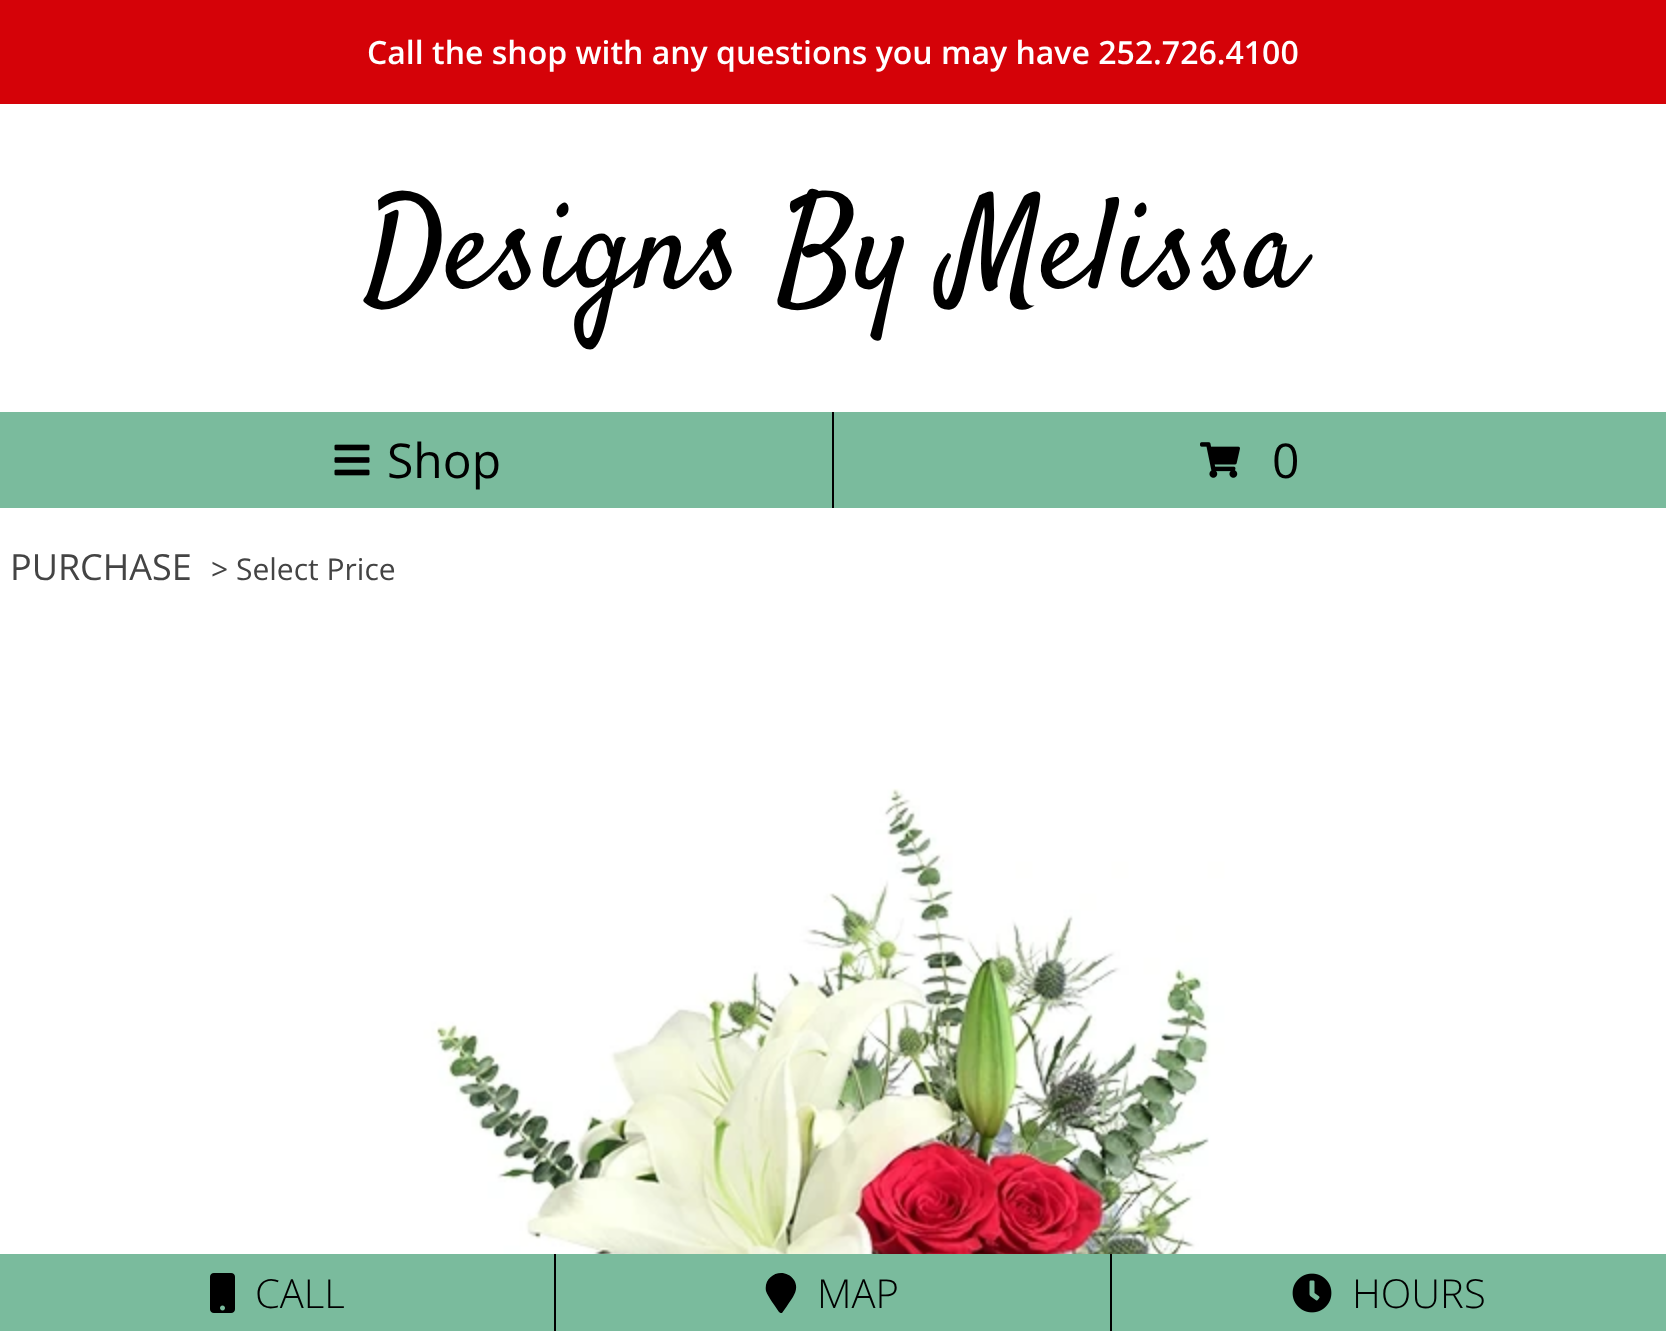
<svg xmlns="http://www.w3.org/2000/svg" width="1666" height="1331">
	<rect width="100%" height="100%" fill="#FFFFFF" />
	<rect x="0" y="0" width="1666" height="104" fill="#D50208" />
	<text x="367" y="64" font-family="Open Sans" font-size="32" font-weight="600" fill="#FFFFFF">Call the shop with any questions you may have 252.726.4100</text>
	<text x="364" y="286" font-family="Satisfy" font-size="130" fill="#000000">Designs By Melissa</text>
	<rect x="832" y="412" width="2" height="96" fill="#000000" />
	<rect x="0" y="412" width="832" height="96" fill="#7ABB9D" />
	<image x="334" y="444" width="36" height="32" href="assets/img1.png" />
	<text x="387" y="478" font-family="Open Sans" font-size="48" fill="#000000">Shop</text>
	<rect x="834" y="412" width="832" height="96" fill="#7ABB9D" />
	<image x="1200" y="442" width="40" height="36" href="assets/img2.png" />
	<text x="1272" y="478" font-family="Open Sans" font-size="48" fill="#000000">0</text>
	<text x="10" y="580" font-family="Open Sans" font-size="36" fill="#444444">PURCHASE</text>
	<text x="211" y="580" font-family="Open Sans" font-size="30" fill="#444444">&gt; Select Price</text>
	<image x="419" y="788" width="830" height="466" href="assets/img3.png" />
	<rect x="0" y="1254" width="554" height="77" fill="#7ABB9D" />
	<image x="210" y="1273" width="25" height="40" href="assets/img4.png" />
	<text x="255" y="1308" font-family="Open Sans" font-size="40" font-weight="300" fill="#000000">CALL</text>
	<rect x="556" y="1254" width="554" height="77" fill="#7ABB9D" />
	<rect x="554" y="1254" width="2" height="77" fill="#000000" />
	<path d="M779 1312C776 1307 768 1297 766 1291C763 1275 784 1266 794 1280C800 1290 792 1298 787 1306L782 1313C781 1313 780 1313 779 1312Z" fill="#000000" />
	<text x="817" y="1308" font-family="Open Sans" font-size="40" font-weight="300" fill="#000000">MAP</text>
	<rect x="1112" y="1254" width="554" height="77" fill="#7ABB9D" />
	<rect x="1110" y="1254" width="2" height="77" fill="#000000" />
	<image x="1292" y="1273" width="40" height="40" href="assets/img5.png" />
	<text x="1352" y="1308" font-family="Open Sans" font-size="40" font-weight="300" fill="#000000">HOURS</text>
</svg>
